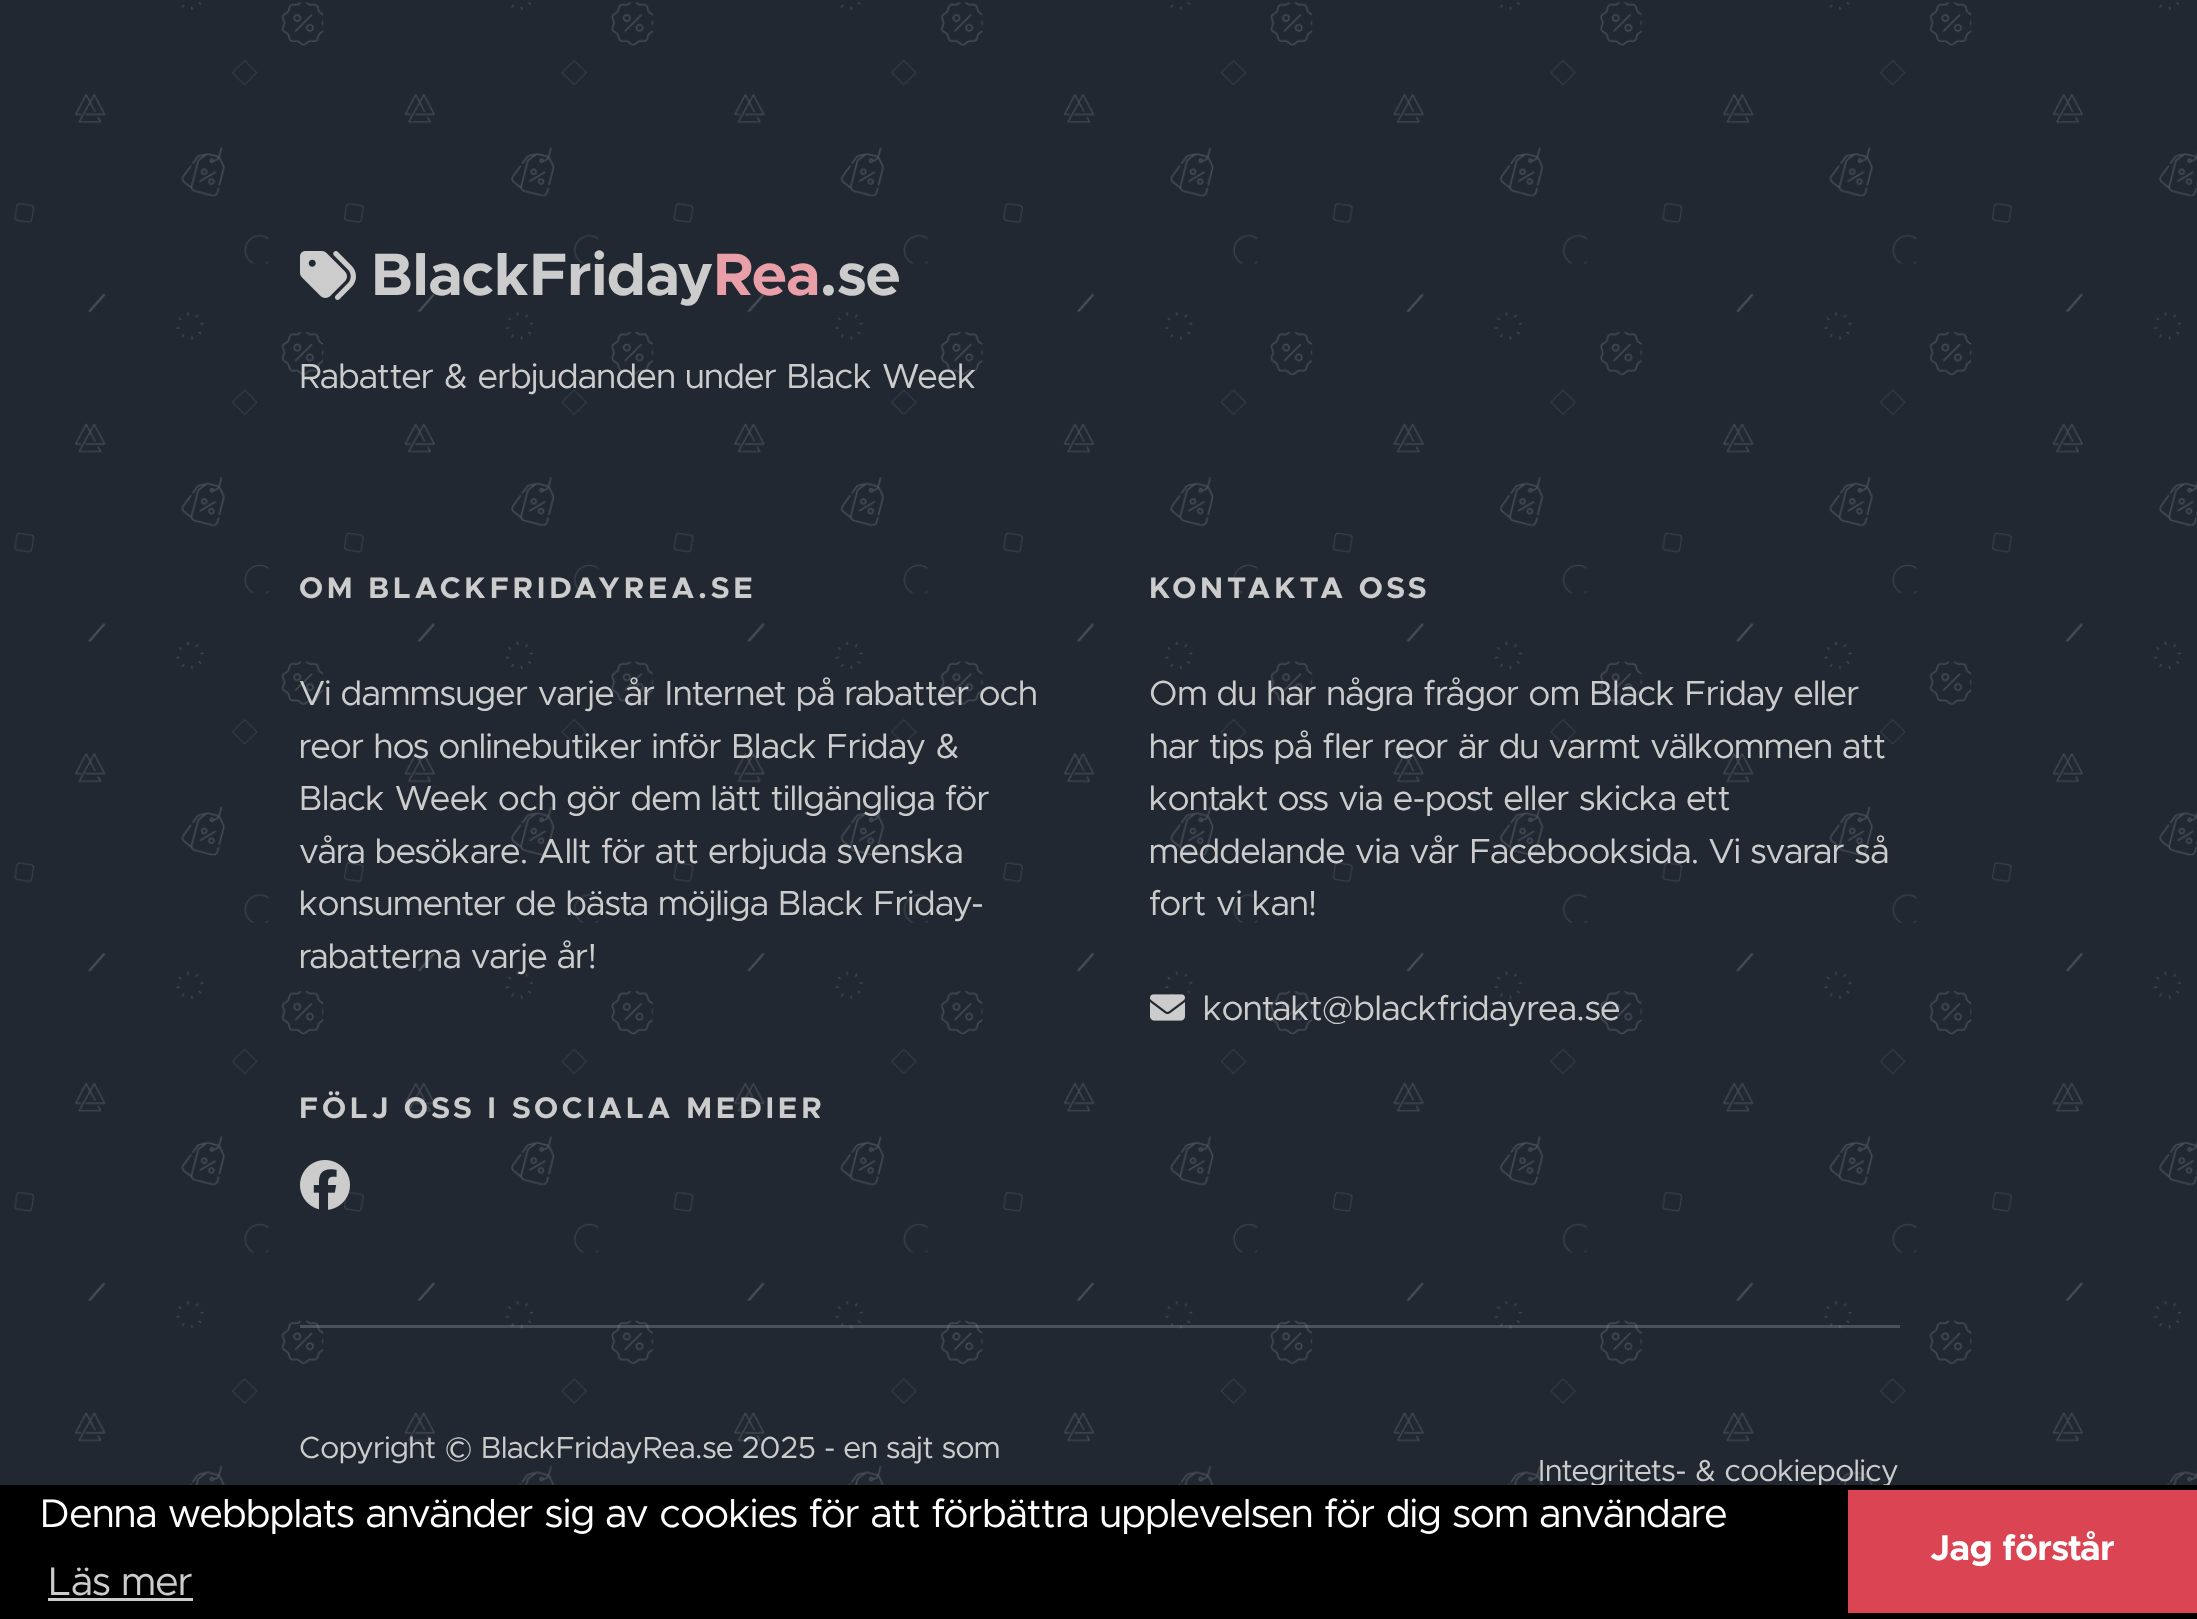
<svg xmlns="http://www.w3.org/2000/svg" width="2197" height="1619">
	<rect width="100%" height="100%" fill="#212832" />
	<image x="14" y="2" width="2183" height="1483" href="assets/img1.png" />
	<image x="300" y="251" width="56" height="49" href="assets/img2.png" />
	<text x="371" y="295" font-family="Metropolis" font-size="60" font-weight="700" fill="#CCCCCC">BlackFriday</text>
	<text x="713" y="295" font-family="Metropolis" font-size="60" font-weight="700" fill="#E99FA8">Rea</text>
	<text x="820" y="295" font-family="Metropolis" font-size="60" font-weight="700" fill="#CCCCCC">.se</text>
	<text x="299" y="388" font-family="Metropolis" font-size="35" fill="#CCCCCC">Rabatter &amp; erbjudanden under Black Week</text>
	<text x="299" y="598" font-family="Metropolis" font-size="30" font-weight="700" letter-spacing="3.75" fill="#CCCCCC">OM BLACKFRIDAYREA.SE</text>
	<g font-family="Metropolis" font-size="35" fill="#CCCCCC">
		<text x="299" y="705">Vi dammsuger varje år Internet på rabatter och</text>
		<text x="299" y="758">reor hos onlinebutiker inför Black Friday &amp;</text>
		<text x="299" y="810">Black Week och gör dem lätt tillgängliga för</text>
		<text x="299" y="863">våra besökare. Allt för att erbjuda svenska</text>
		<text x="299" y="915">konsumenter de bästa möjliga Black Friday-</text>
		<text x="299" y="968">rabatterna varje år!</text>
	</g>
	<text x="299" y="1118" font-family="Metropolis" font-size="30" font-weight="700" letter-spacing="3.75" fill="#CCCCCC">FÖLJ OSS I SOCIALA MEDIER</text>
	<image x="300" y="1160" width="50" height="50" href="assets/img3.png" />
	<text x="1149" y="598" font-family="Metropolis" font-size="30" font-weight="700" letter-spacing="3.75" fill="#CCCCCC">KONTAKTA OSS</text>
	<g font-family="Metropolis" font-size="35" fill="#CCCCCC">
		<text x="1149" y="705">Om du har några frågor om Black Friday eller</text>
		<text x="1149" y="758">har tips på fler reor är du varmt välkommen att</text>
		<text x="1149" y="810">kontakt oss via e-post eller skicka ett</text>
		<text x="1149" y="863">meddelande via vår Facebooksida. Vi svarar så</text>
		<text x="1149" y="915">fort vi kan!</text>
	</g>
	<image x="1150" y="994" width="35" height="27" href="assets/img4.png" />
	<text x="1203" y="1020" font-family="Metropolis" font-size="35" fill="#CCCCCC">kontakt@blackfridayrea.se</text>
	<rect x="300" y="1325" width="1600" height="3" fill="#CCCCCC" fill-opacity="0.25" />
	<g font-family="Metropolis" font-size="30.6" fill="#CCCCCC">
		<text x="299" y="1458">Copyright © BlackFridayRea.se 2025 - en sajt som</text>
		<text x="1538" y="1481">Integritets- &amp; cookiepolicy</text>
	</g>
	<rect x="0" y="1485" width="2197" height="134" fill="#000000" />
	<text x="40" y="1527" font-family="Metropolis" font-size="40" fill="#FFFFFF">Denna webbplats använder sig av cookies för att förbättra upplevelsen för dig som användare</text>
	<text x="48" y="1595" font-family="Metropolis" font-size="40" fill="#CCCCCC">Läs mer</text>
	<rect x="48" y="1598" width="145" height="3" fill="#CCCCCC" />
	<rect x="1848" y="1490" width="349" height="123" fill="#DA4453" />
	<text x="1930" y="1560" font-family="Metropolis" font-size="36" font-weight="700" fill="#FFFFFF">Jag förstår</text>
</svg>
